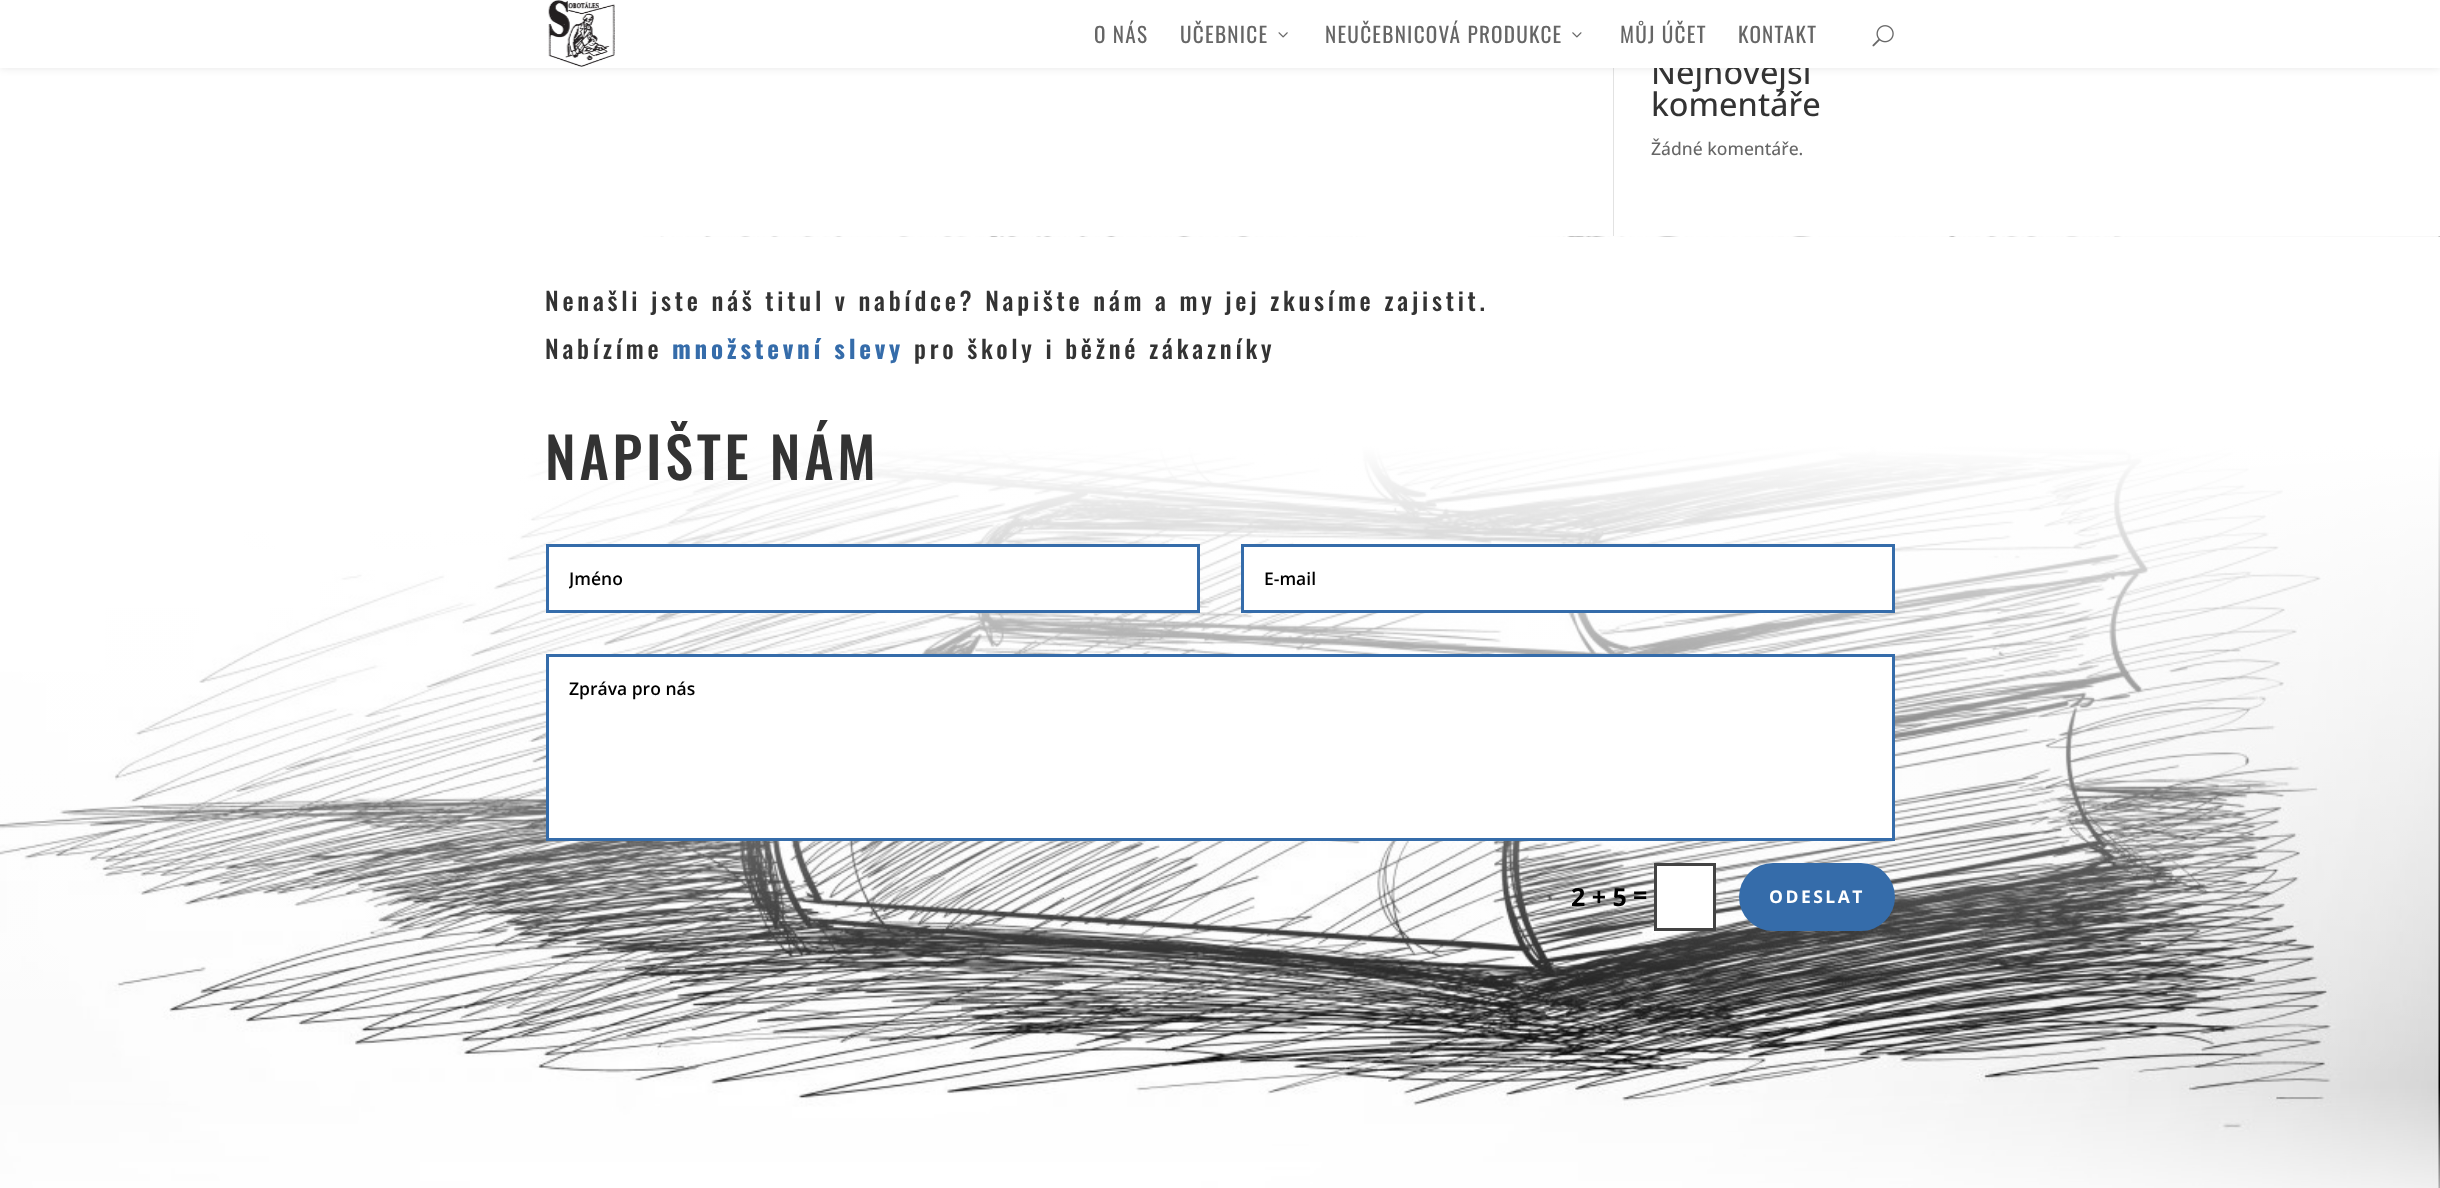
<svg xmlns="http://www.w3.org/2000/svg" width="2440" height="1188">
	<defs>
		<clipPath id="clip1"><rect x="569" y="566" width="609" height="24" /></clipPath>
	</defs>
	<rect width="100%" height="100%" fill="#FFFFFF" />
	<rect x="1613" y="68" width="1" height="168" fill="#E2E2E2" />
	<rect x="0" y="0" width="2440" height="68" fill="#000000" fill-opacity="0.1" filter="blur(4.5px)" />
	<text x="1651" y="84" font-family="Open Sans" font-size="32.5" font-weight="500" fill="#333333">Nejnovější</text>
	<rect x="0" y="0" width="2440" height="68" fill="#FFFFFF" />
	<image x="548" y="0" width="67" height="67" href="assets/img1.png" />
	<g font-family="Oswald" font-size="21.25" letter-spacing="1.25" fill="#666666">
		<text x="1094" y="43">O NÁS</text>
		<text x="1180" y="43">UČEBNICE</text>
	</g>
	<image x="1278" y="32" width="10" height="6" href="assets/img2.png" />
	<text x="1325" y="43" font-family="Oswald" font-size="21.25" letter-spacing="1.25" fill="#666666">NEUČEBNICOVÁ PRODUKCE</text>
	<image x="1572" y="32" width="10" height="6" href="assets/img3.png" />
	<g font-family="Oswald" font-size="21.25" letter-spacing="1.25" fill="#666666">
		<text x="1620" y="43">MŮJ ÚČET</text>
		<text x="1738" y="43">KONTAKT</text>
	</g>
	<image x="1872" y="25" width="22" height="22" href="assets/img4.png" />
	<text x="1651" y="116" font-family="Open Sans" font-size="32.5" font-weight="500" fill="#333333">komentáře</text>
	<text x="1651" y="155" font-family="Open Sans" font-size="17.5" font-weight="500" fill="#666666">Žádné komentáře.</text>
	<image x="0" y="236" width="2440" height="952" href="assets/img5.png" />
	<g font-family="Oswald" font-size="25" font-weight="500" letter-spacing="3.75" fill="#333333">
		<text x="545" y="311">Nenašli jste náš titul v nabídce? Napište nám a my jej zkusíme zajistit.</text>
		<text x="545" y="359">Nabízíme</text>
	</g>
	<text x="672" y="359" font-family="Oswald" font-size="25" font-weight="700" letter-spacing="3.75" fill="#356CAA">množstevní slevy</text>
	<text x="914" y="359" font-family="Oswald" font-size="25" font-weight="500" letter-spacing="3.75" fill="#333333">pro školy i běžné zákazníky</text>
	<text x="545" y="480" font-family="Oswald" font-size="56.25" font-weight="500" letter-spacing="3.75" fill="#333333">NAPIŠTE NÁM</text>
	<rect x="547.5" y="545.5" width="651" height="66" fill="#FFFFFF" stroke="#356CAA" stroke-width="3" />
	<g clip-path="url(#clip1)">
		<text x="569" y="585" font-family="Open Sans" font-size="17.5" font-weight="600" fill="#000000">Jméno</text>
	</g>
	<rect x="1242.5" y="545.5" width="651" height="66" fill="#FFFFFF" stroke="#356CAA" stroke-width="3" />
	<text x="1264" y="585" font-family="Open Sans" font-size="17.5" font-weight="600" fill="#000000">E-mail</text>
	<rect x="547.5" y="655.5" width="1346" height="184" fill="#FFFFFF" stroke="#356CAA" stroke-width="3" />
	<text x="569" y="695" font-family="Open Sans" font-size="17.5" font-weight="600" fill="#000000">Zpráva pro nás</text>
	<g font-family="Open Sans" font-size="25" font-weight="700" fill="#000000">
		<text x="1571" y="906">2 + 5</text>
		<text x="1633" y="904">=</text>
	</g>
	<rect x="1655.5" y="864.5" width="59" height="65" fill="#FFFFFF" stroke="#434343" stroke-width="3" />
	<rect x="1739" y="863" width="156" height="68" rx="34" fill="#356CAA" />
	<text x="1769" y="903" font-family="Open Sans" font-size="17.5" font-weight="700" letter-spacing="2.5" fill="#FFFFFF">ODESLAT</text>
</svg>
